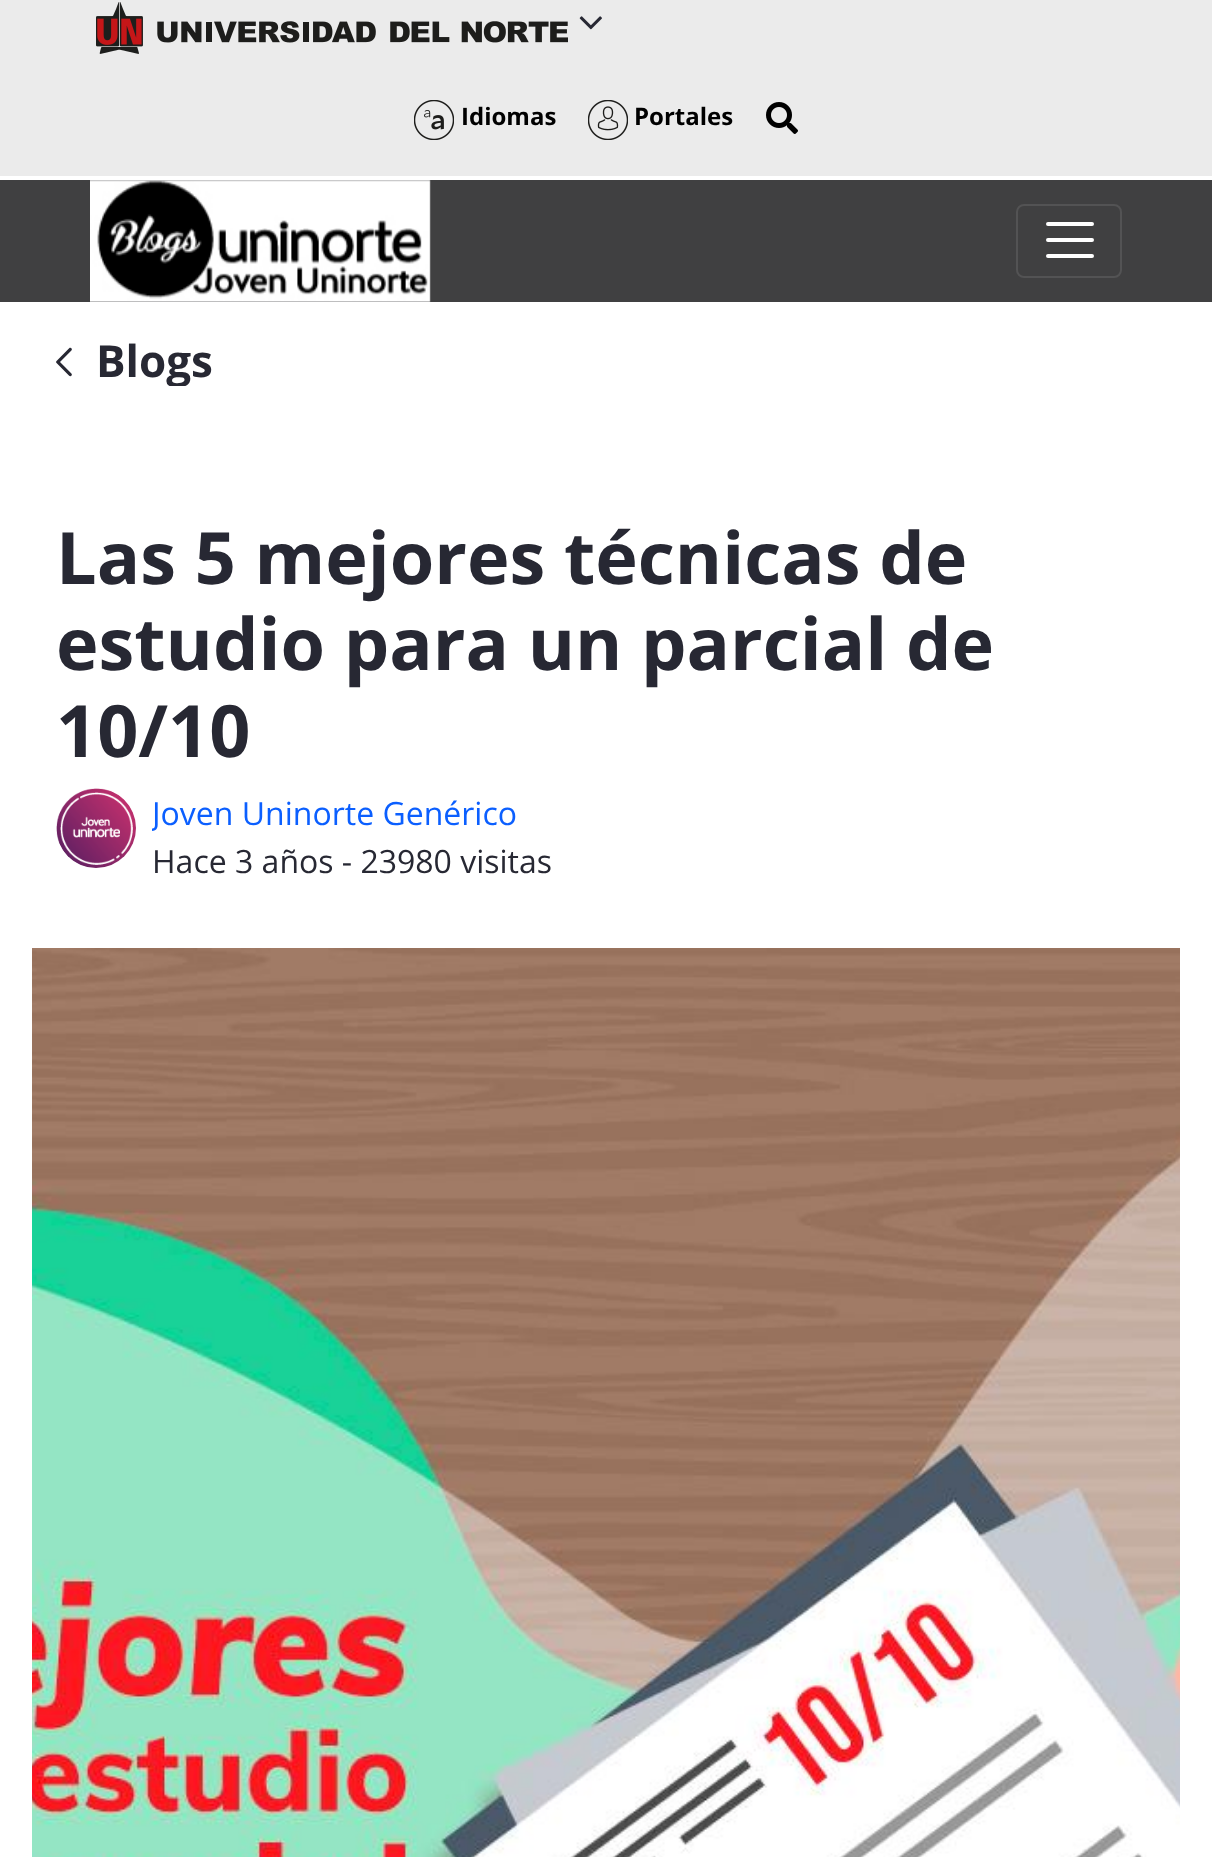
<svg xmlns="http://www.w3.org/2000/svg" width="1212" height="1857">
	<defs>
		<clipPath id="clip1"><rect x="96" y="334" width="1030" height="52" /></clipPath>
		<clipPath id="clip2"><rect x="152" y="788" width="364" height="48" /></clipPath>
	</defs>
	<rect width="100%" height="100%" fill="#FFFFFF" />
	<rect x="0" y="0" width="1212" height="176" fill="#EBEBEB" />
	<image x="96" y="2" width="472" height="52" href="assets/img1.png" />
	<image x="579" y="16" width="23" height="14" href="assets/img2.png" />
	<image x="414" y="100" width="40" height="40" href="assets/img3.png" />
	<text x="461" y="125" font-family="Open Sans" font-size="24" font-weight="700" fill="#000000">Idiomas</text>
	<image x="588" y="100" width="40" height="40" href="assets/img4.png" />
	<text x="634" y="125" font-family="Open Sans" font-size="24" font-weight="700" fill="#000000">Portales</text>
	<image x="766" y="102" width="32" height="32" href="assets/img5.png" />
	<rect x="0" y="180" width="1212" height="122" fill="#404041" />
	<image x="90" y="180" width="341" height="122" href="assets/img6.png" />
	<rect x="1017" y="205" width="104" height="72" rx="7" fill="none" stroke="#535354" stroke-width="2" />
	<path d="M1048 224H1092M1048 240H1092M1048 256H1092" fill="none" stroke="#FFFFFF" stroke-width="4" stroke-linecap="round" />
	<image x="56" y="347" width="16" height="30" href="assets/img7.png" />
	<g clip-path="url(#clip1)">
		<text x="96" y="377" font-family="Open Sans" font-size="44" font-weight="700" fill="#272833">Blogs</text>
	</g>
	<g font-family="Open Sans" font-size="72" font-weight="700" fill="#272833">
		<text x="56" y="584">Las 5 mejores técnicas de</text>
		<text x="56" y="670">estudio para un parcial de</text>
		<text x="56" y="757">10/10</text>
	</g>
	<image x="56" y="788" width="80" height="80" href="assets/img8.png" />
	<g clip-path="url(#clip2)">
		<text x="152" y="825" font-family="Open Sans" font-size="32" fill="#0B5FFF">Joven Uninorte Genérico</text>
	</g>
	<text x="152" y="873" font-family="Open Sans" font-size="32" fill="#272833">Hace 3 años - 23980 visitas</text>
	<image x="32" y="948" width="1148" height="909" href="assets/img9.png" />
</svg>
